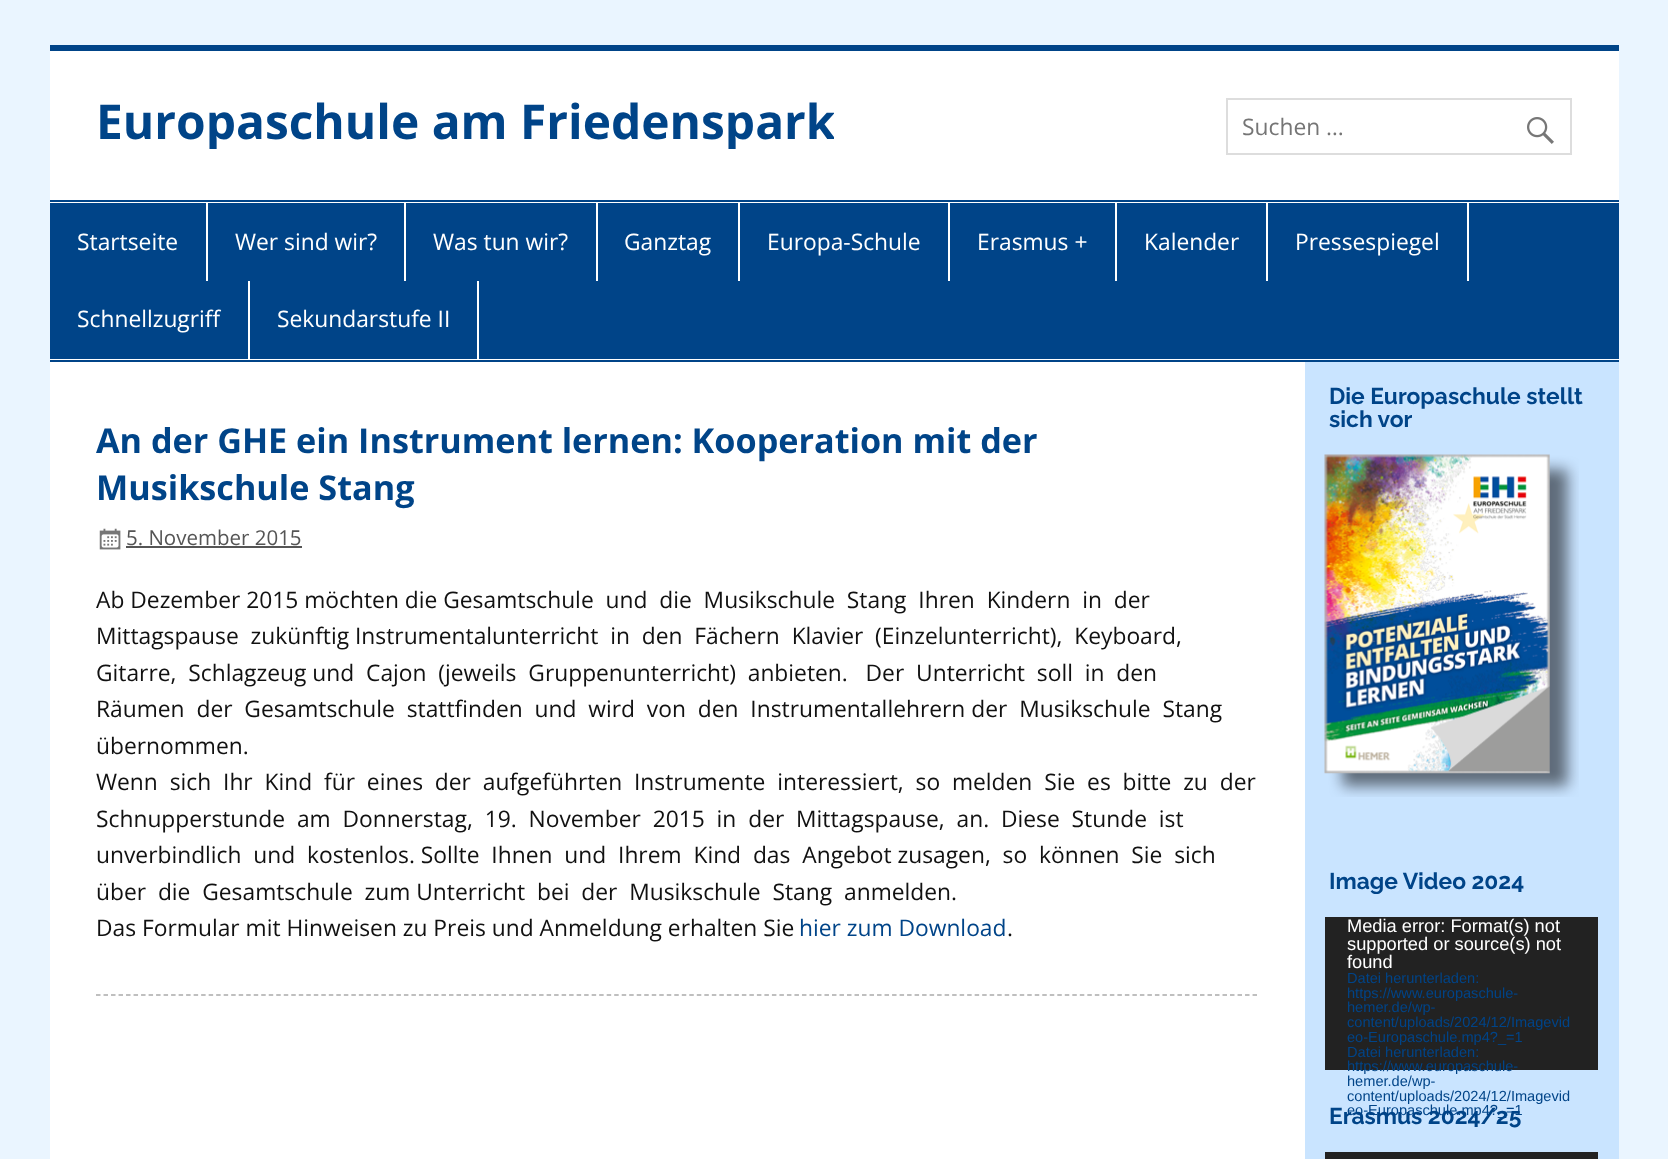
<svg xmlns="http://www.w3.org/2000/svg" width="1668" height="1159">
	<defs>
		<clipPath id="clip1"><rect x="96" y="98" width="738" height="51" /></clipPath>
	</defs>
	<rect width="100%" height="100%" fill="#EAF5FF" />
	<rect x="50" y="51" width="1569" height="1108" fill="#FFFFFF" />
	<rect x="50" y="45" width="1569" height="6" fill="#004488" />
	<g clip-path="url(#clip1)">
		<text x="96" y="139" font-family="Open Sans" font-size="47.9" font-weight="700" fill="#004488">Europaschule am Friedenspark</text>
	</g>
	<rect x="1227" y="99" width="344" height="55" fill="none" stroke="#DDDDDD" stroke-width="2" />
	<text x="1242" y="135" font-family="Open Sans" font-size="22.8" fill="#757575">Suchen …</text>
	<image x="1527" y="117" width="27" height="27" href="assets/img1.png" />
	<rect x="50" y="200" width="1569" height="2" fill="#004488" />
	<rect x="50" y="360" width="1569" height="2" fill="#004488" />
	<rect x="50" y="203" width="1569" height="156" fill="#004488" />
	<rect x="206" y="203" width="2" height="78" fill="#FFFFFF" />
	<text x="77" y="250" font-family="Open Sans" font-size="22.8" fill="#FFFFFF">Startseite</text>
	<rect x="404" y="203" width="2" height="78" fill="#FFFFFF" />
	<text x="235" y="250" font-family="Open Sans" font-size="22.8" fill="#FFFFFF">Wer sind wir?</text>
	<rect x="596" y="203" width="2" height="78" fill="#FFFFFF" />
	<text x="433" y="250" font-family="Open Sans" font-size="22.8" fill="#FFFFFF">Was tun wir?</text>
	<rect x="738" y="203" width="2" height="78" fill="#FFFFFF" />
	<text x="624" y="250" font-family="Open Sans" font-size="22.8" fill="#FFFFFF">Ganztag</text>
	<rect x="948" y="203" width="2" height="78" fill="#FFFFFF" />
	<text x="767" y="250" font-family="Open Sans" font-size="22.8" fill="#FFFFFF">Europa-Schule</text>
	<rect x="1115" y="203" width="2" height="78" fill="#FFFFFF" />
	<text x="977" y="250" font-family="Open Sans" font-size="22.8" fill="#FFFFFF">Erasmus +</text>
	<rect x="1266" y="203" width="2" height="78" fill="#FFFFFF" />
	<text x="1144" y="250" font-family="Open Sans" font-size="22.8" fill="#FFFFFF">Kalender</text>
	<rect x="1467" y="203" width="2" height="78" fill="#FFFFFF" />
	<text x="1295" y="250" font-family="Open Sans" font-size="22.8" fill="#FFFFFF">Pressespiegel</text>
	<rect x="248" y="281" width="2" height="78" fill="#FFFFFF" />
	<text x="77" y="327" font-family="Open Sans" font-size="22.8" fill="#FFFFFF">Schnellzugriff</text>
	<rect x="477" y="281" width="2" height="78" fill="#FFFFFF" />
	<text x="277" y="327" font-family="Open Sans" font-size="22.8" fill="#FFFFFF">Sekundarstufe II</text>
	<path d="M96 995H1258.5" fill="none" stroke="#AAAAAA" stroke-width="1.5" stroke-dasharray="4.5 3.01" />
	<g font-family="Open Sans" font-size="34.2" font-weight="700" fill="#004488">
		<text x="96" y="453">An der GHE ein Instrument lernen: Kooperation mit der</text>
		<text x="96" y="500">Musikschule Stang</text>
	</g>
	<image x="99" y="528" width="22" height="22" href="assets/img2.png" />
	<text x="126" y="545" font-family="Open Sans" font-size="20.5" fill="#555555">5. November 2015</text>
	<rect x="126" y="546" width="176" height="2" fill="#555555" />
	<g font-family="Open Sans" font-size="22.8" fill="#111111">
		<text x="96" y="608" xml:space="preserve">Ab Dezember 2015 möchten die Gesamtschule  und  die  Musikschule  Stang  Ihren  Kindern  in  der</text>
		<text x="96" y="644" xml:space="preserve">Mittagspause  zukünftig Instrumentalunterricht  in  den  Fächern  Klavier  (Einzelunterricht),  Keyboard,</text>
		<text x="96" y="681" xml:space="preserve">Gitarre,  Schlagzeug und  Cajon  (jeweils  Gruppenunterricht)  anbieten.   Der  Unterricht  soll  in  den</text>
		<text x="96" y="717" xml:space="preserve">Räumen  der  Gesamtschule  stattfinden  und  wird  von  den  Instrumentallehrern der  Musikschule  Stang</text>
		<text x="96" y="754">übernommen.</text>
		<text x="96" y="790" xml:space="preserve">Wenn  sich  Ihr  Kind  für  eines  der  aufgeführten  Instrumente  interessiert,  so  melden  Sie  es  bitte  zu  der</text>
		<text x="96" y="827" xml:space="preserve">Schnupperstunde  am  Donnerstag,  19.  November  2015  in  der  Mittagspause,  an.  Diese  Stunde  ist</text>
		<text x="96" y="863" xml:space="preserve">unverbindlich  und  kostenlos. Sollte  Ihnen  und  Ihrem  Kind  das  Angebot zusagen,  so  können  Sie  sich</text>
		<text x="96" y="900" xml:space="preserve">über  die  Gesamtschule  zum Unterricht  bei  der  Musikschule  Stang  anmelden.</text>
		<text x="96" y="936">Das Formular mit Hinweisen zu Preis und Anmeldung erhalten Sie</text>
	</g>
	<text x="799" y="936" font-family="Open Sans" font-size="22.8" fill="#004488">hier zum Download</text>
	<text x="1007" y="936" font-family="Open Sans" font-size="22.8" fill="#111111">.</text>
	<rect x="1305" y="362" width="314" height="797" fill="#C9E4FF" />
	<g font-family="Raleway" font-size="22.8" font-weight="700" fill="#004488">
		<text x="1329" y="404">Die Europaschule stellt</text>
		<text x="1329" y="427">sich vor</text>
	</g>
	<image x="1324" y="454" width="255" height="343" href="assets/img3.png" />
	<text x="1329" y="889" font-family="Raleway" font-size="22.8" font-weight="700" fill="#004488">Image Video 2024</text>
	<rect x="1325" y="917" width="273" height="153" fill="#222222" />
	<g font-family="Liberation Sans" font-size="18.25" fill="#FFFFFF">
		<text x="1347" y="932">Media error: Format(s) not</text>
		<text x="1347" y="950">supported or source(s) not</text>
		<text x="1347" y="968">found</text>
	</g>
	<g font-family="Liberation Sans" font-size="14.6" fill="#004488">
		<text x="1347" y="983">Datei herunterladen:</text>
		<text x="1347" y="998">https://www.europaschule-</text>
		<text x="1347" y="1012">hemer.de/wp-</text>
		<text x="1347" y="1027">content/uploads/2024/12/Imagevid</text>
		<text x="1347" y="1042">eo-Europaschule.mp4?_=1</text>
		<text x="1347" y="1057">Datei herunterladen:</text>
		<text x="1347" y="1071">https://www.europaschule-</text>
		<text x="1347" y="1086">hemer.de/wp-</text>
		<text x="1347" y="1101">content/uploads/2024/12/Imagevid</text>
	</g>
	<text x="1329" y="1124" font-family="Raleway" font-size="22.8" font-weight="700" fill="#004488">Erasmus 2024/25</text>
	<text x="1347" y="1115" font-family="Liberation Sans" font-size="14.6" fill="#004488">eo-Europaschule.mp4?_=1</text>
	<rect x="1325" y="1152" width="273" height="7" fill="#222222" />
</svg>
